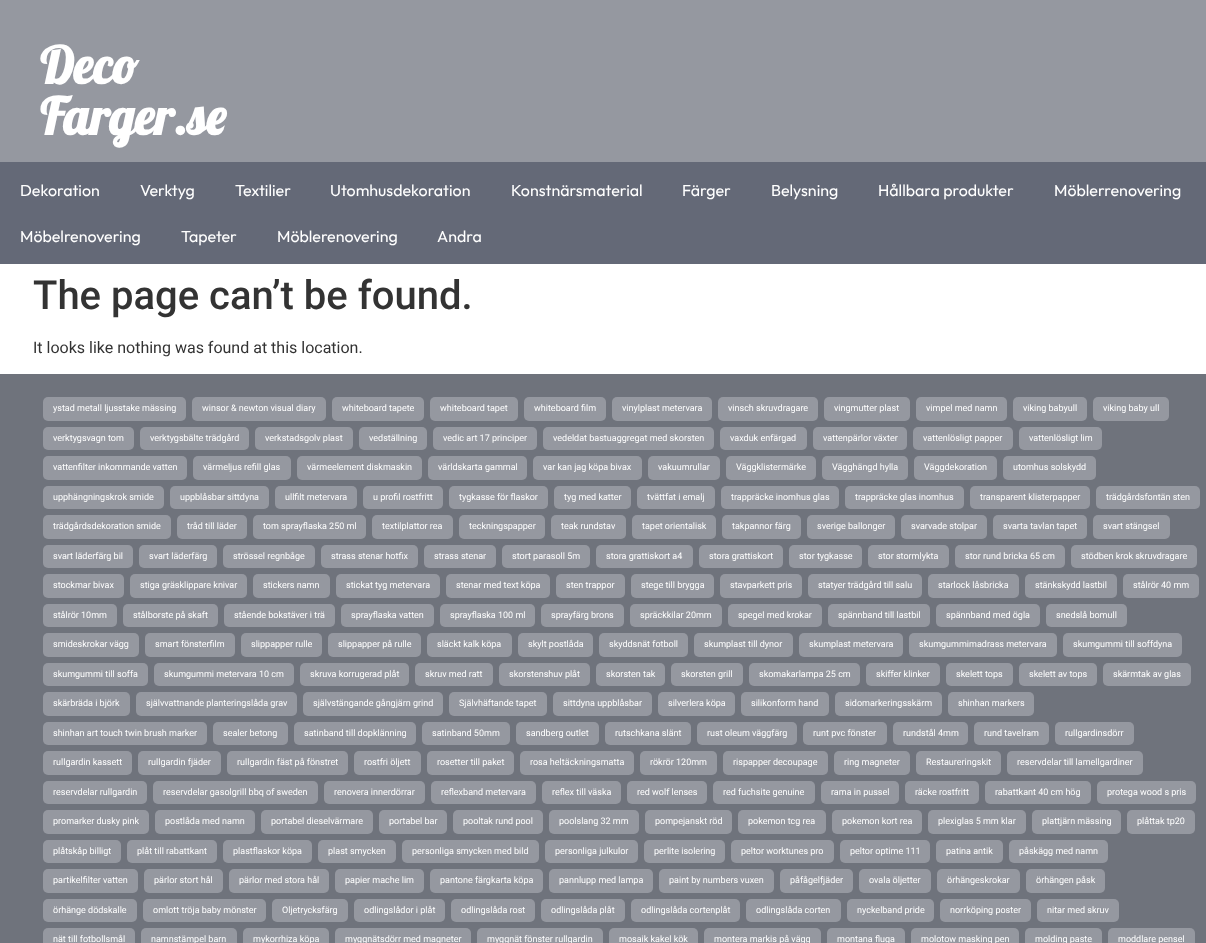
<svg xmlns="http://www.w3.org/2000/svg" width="1206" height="943">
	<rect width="100%" height="100%" fill="#FFFFFF" />
	<rect x="0" y="0" width="1206" height="162" fill="#9598A0" />
	<g font-family="Lobster" font-size="51" font-weight="700" fill="#FFFFFF">
		<text x="40" y="84">Deco</text>
		<text x="40" y="135">Farger.se</text>
	</g>
	<rect x="0" y="162" width="1206" height="102" fill="#646977" />
	<g font-family="Outfit" font-size="16" fill="#FFFFFF">
		<text x="20" y="196">Dekoration</text>
		<text x="140" y="196">Verktyg</text>
		<text x="235" y="196">Textilier</text>
		<text x="330" y="196">Utomhusdekoration</text>
		<text x="511" y="196">Konstnärsmaterial</text>
		<text x="682" y="196">Färger</text>
		<text x="771" y="196">Belysning</text>
		<text x="878" y="196">Hållbara produkter</text>
		<text x="1054" y="196">Möblerrenovering</text>
		<text x="20" y="242">Möbelrenovering</text>
		<text x="181" y="242">Tapeter</text>
		<text x="277" y="242">Möblerenovering</text>
		<text x="437" y="242">Andra</text>
	</g>
	<text x="33" y="309" font-family="Roboto" font-size="40" font-weight="500" fill="#333333">The page can’t be found.</text>
	<text x="33" y="353" font-family="Roboto" font-size="16" fill="#333333">It looks like nothing was found at this location.</text>
	<rect x="0" y="374" width="1206" height="569" fill="#6F737C" />
	<rect x="43" y="397" width="143" height="24" rx="5" fill="#9598A0" />
	<text x="53" y="411" font-family="Roboto" font-size="9" fill="#FFFFFF">ystad metall ljusstake mässing</text>
	<rect x="192" y="397" width="134" height="24" rx="5" fill="#9598A0" />
	<text x="202" y="411" font-family="Roboto" font-size="9" fill="#FFFFFF">winsor &amp; newton visual diary</text>
	<rect x="332" y="397" width="92" height="24" rx="5" fill="#9598A0" />
	<text x="342" y="411" font-family="Roboto" font-size="9" fill="#FFFFFF">whiteboard tapete</text>
	<rect x="430" y="397" width="88" height="24" rx="5" fill="#9598A0" />
	<text x="440" y="411" font-family="Roboto" font-size="9" fill="#FFFFFF">whiteboard tapet</text>
	<rect x="524" y="397" width="82" height="24" rx="5" fill="#9598A0" />
	<text x="534" y="411" font-family="Roboto" font-size="9" fill="#FFFFFF">whiteboard film</text>
	<rect x="612" y="397" width="100" height="24" rx="5" fill="#9598A0" />
	<text x="622" y="411" font-family="Roboto" font-size="9" fill="#FFFFFF">vinylplast metervara</text>
	<rect x="718" y="397" width="100" height="24" rx="5" fill="#9598A0" />
	<text x="728" y="411" font-family="Roboto" font-size="9" fill="#FFFFFF">vinsch skruvdragare</text>
	<rect x="824" y="397" width="86" height="24" rx="5" fill="#9598A0" />
	<text x="834" y="411" font-family="Roboto" font-size="9" fill="#FFFFFF">vingmutter plast</text>
	<rect x="916" y="397" width="91" height="24" rx="5" fill="#9598A0" />
	<text x="926" y="411" font-family="Roboto" font-size="9" fill="#FFFFFF">vimpel med namn</text>
	<rect x="1013" y="397" width="74" height="24" rx="5" fill="#9598A0" />
	<text x="1023" y="411" font-family="Roboto" font-size="9" fill="#FFFFFF">viking babyull</text>
	<rect x="1093" y="397" width="76" height="24" rx="5" fill="#9598A0" />
	<text x="1103" y="411" font-family="Roboto" font-size="9" fill="#FFFFFF">viking baby ull</text>
	<rect x="43" y="427" width="91" height="23" rx="5" fill="#9598A0" />
	<text x="53" y="441" font-family="Roboto" font-size="9" fill="#FFFFFF">verktygsvagn tom</text>
	<rect x="140" y="427" width="109" height="23" rx="5" fill="#9598A0" />
	<text x="150" y="441" font-family="Roboto" font-size="9" fill="#FFFFFF">verktygsbälte trädgård</text>
	<rect x="255" y="427" width="98" height="23" rx="5" fill="#9598A0" />
	<text x="265" y="441" font-family="Roboto" font-size="9" fill="#FFFFFF">verkstadsgolv plast</text>
	<rect x="359" y="427" width="68" height="23" rx="5" fill="#9598A0" />
	<text x="369" y="441" font-family="Roboto" font-size="9" fill="#FFFFFF">vedställning</text>
	<rect x="433" y="427" width="104" height="23" rx="5" fill="#9598A0" />
	<text x="443" y="441" font-family="Roboto" font-size="9" fill="#FFFFFF">vedic art 17 principer</text>
	<rect x="543" y="427" width="171" height="23" rx="5" fill="#9598A0" />
	<text x="553" y="441" font-family="Roboto" font-size="9" fill="#FFFFFF">vedeldat bastuaggregat med skorsten</text>
	<rect x="720" y="427" width="87" height="23" rx="5" fill="#9598A0" />
	<text x="730" y="441" font-family="Roboto" font-size="9" fill="#FFFFFF">vaxduk enfärgad</text>
	<rect x="813" y="427" width="94" height="23" rx="5" fill="#9598A0" />
	<text x="823" y="441" font-family="Roboto" font-size="9" fill="#FFFFFF">vattenpärlor växter</text>
	<rect x="913" y="427" width="100" height="23" rx="5" fill="#9598A0" />
	<text x="923" y="441" font-family="Roboto" font-size="9" fill="#FFFFFF">vattenlösligt papper</text>
	<rect x="1019" y="427" width="83" height="23" rx="5" fill="#9598A0" />
	<text x="1029" y="441" font-family="Roboto" font-size="9" fill="#FFFFFF">vattenlösligt lim</text>
	<rect x="43" y="456" width="144" height="24" rx="5" fill="#9598A0" />
	<text x="53" y="470" font-family="Roboto" font-size="9" fill="#FFFFFF">vattenfilter inkommande vatten</text>
	<rect x="193" y="456" width="98" height="24" rx="5" fill="#9598A0" />
	<text x="203" y="470" font-family="Roboto" font-size="9" fill="#FFFFFF">värmeljus refill glas</text>
	<rect x="297" y="456" width="125" height="24" rx="5" fill="#9598A0" />
	<text x="307" y="470" font-family="Roboto" font-size="9" fill="#FFFFFF">värmeelement diskmaskin</text>
	<rect x="428" y="456" width="99" height="24" rx="5" fill="#9598A0" />
	<text x="438" y="470" font-family="Roboto" font-size="9" fill="#FFFFFF">världskarta gammal</text>
	<rect x="533" y="456" width="109" height="24" rx="5" fill="#9598A0" />
	<text x="543" y="470" font-family="Roboto" font-size="9" fill="#FFFFFF">var kan jag köpa bivax</text>
	<rect x="648" y="456" width="72" height="24" rx="5" fill="#9598A0" />
	<text x="658" y="470" font-family="Roboto" font-size="9" fill="#FFFFFF">vakuumrullar</text>
	<rect x="726" y="456" width="90" height="24" rx="5" fill="#9598A0" />
	<text x="736" y="470" font-family="Roboto" font-size="9" fill="#FFFFFF">Väggklistermärke</text>
	<rect x="822" y="456" width="86" height="24" rx="5" fill="#9598A0" />
	<text x="832" y="470" font-family="Roboto" font-size="9" fill="#FFFFFF">Vägghängd hylla</text>
	<rect x="914" y="456" width="83" height="24" rx="5" fill="#9598A0" />
	<text x="924" y="470" font-family="Roboto" font-size="9" fill="#FFFFFF">Väggdekoration</text>
	<rect x="1003" y="456" width="93" height="24" rx="5" fill="#9598A0" />
	<text x="1013" y="470" font-family="Roboto" font-size="9" fill="#FFFFFF">utomhus solskydd</text>
	<rect x="43" y="486" width="121" height="23" rx="5" fill="#9598A0" />
	<text x="53" y="500" font-family="Roboto" font-size="9" fill="#FFFFFF">upphängningskrok smide</text>
	<rect x="170" y="486" width="99" height="23" rx="5" fill="#9598A0" />
	<text x="180" y="500" font-family="Roboto" font-size="9" fill="#FFFFFF">uppblåsbar sittdyna</text>
	<rect x="275" y="486" width="82" height="23" rx="5" fill="#9598A0" />
	<text x="285" y="500" font-family="Roboto" font-size="9" fill="#FFFFFF">ullfilt metervara</text>
	<rect x="363" y="486" width="80" height="23" rx="5" fill="#9598A0" />
	<text x="373" y="500" font-family="Roboto" font-size="9" fill="#FFFFFF">u profil rostfritt</text>
	<rect x="449" y="486" width="99" height="23" rx="5" fill="#9598A0" />
	<text x="459" y="500" font-family="Roboto" font-size="9" fill="#FFFFFF">tygkasse för flaskor</text>
	<rect x="554" y="486" width="77" height="23" rx="5" fill="#9598A0" />
	<text x="564" y="500" font-family="Roboto" font-size="9" fill="#FFFFFF">tyg med katter</text>
	<rect x="637" y="486" width="78" height="23" rx="5" fill="#9598A0" />
	<text x="647" y="500" font-family="Roboto" font-size="9" fill="#FFFFFF">tvättfat i emalj</text>
	<rect x="721" y="486" width="118" height="23" rx="5" fill="#9598A0" />
	<text x="731" y="500" font-family="Roboto" font-size="9" fill="#FFFFFF">trappräcke inomhus glas</text>
	<rect x="845" y="486" width="119" height="23" rx="5" fill="#9598A0" />
	<text x="855" y="500" font-family="Roboto" font-size="9" fill="#FFFFFF">trappräcke glas inomhus</text>
	<rect x="970" y="486" width="120" height="23" rx="5" fill="#9598A0" />
	<text x="980" y="500" font-family="Roboto" font-size="9" fill="#FFFFFF">transparent klisterpapper</text>
	<rect x="1096" y="486" width="104" height="23" rx="5" fill="#9598A0" />
	<text x="1106" y="500" font-family="Roboto" font-size="9" fill="#FFFFFF">trädgårdsfontän sten</text>
	<rect x="43" y="515" width="128" height="24" rx="5" fill="#9598A0" />
	<text x="53" y="529" font-family="Roboto" font-size="9" fill="#FFFFFF">trädgårdsdekoration smide</text>
	<rect x="177" y="515" width="70" height="24" rx="5" fill="#9598A0" />
	<text x="187" y="529" font-family="Roboto" font-size="9" fill="#FFFFFF">tråd till läder</text>
	<rect x="253" y="515" width="113" height="24" rx="5" fill="#9598A0" />
	<text x="263" y="529" font-family="Roboto" font-size="9" fill="#FFFFFF">tom sprayflaska 250 ml</text>
	<rect x="372" y="515" width="81" height="24" rx="5" fill="#9598A0" />
	<text x="382" y="529" font-family="Roboto" font-size="9" fill="#FFFFFF">textilplattor rea</text>
	<rect x="459" y="515" width="86" height="24" rx="5" fill="#9598A0" />
	<text x="469" y="529" font-family="Roboto" font-size="9" fill="#FFFFFF">teckningspapper</text>
	<rect x="551" y="515" width="75" height="24" rx="5" fill="#9598A0" />
	<text x="561" y="529" font-family="Roboto" font-size="9" fill="#FFFFFF">teak rundstav</text>
	<rect x="632" y="515" width="84" height="24" rx="5" fill="#9598A0" />
	<text x="642" y="529" font-family="Roboto" font-size="9" fill="#FFFFFF">tapet orientalisk</text>
	<rect x="722" y="515" width="79" height="24" rx="5" fill="#9598A0" />
	<text x="732" y="529" font-family="Roboto" font-size="9" fill="#FFFFFF">takpannor färg</text>
	<rect x="807" y="515" width="88" height="24" rx="5" fill="#9598A0" />
	<text x="817" y="529" font-family="Roboto" font-size="9" fill="#FFFFFF">sverige ballonger</text>
	<rect x="901" y="515" width="86" height="24" rx="5" fill="#9598A0" />
	<text x="911" y="529" font-family="Roboto" font-size="9" fill="#FFFFFF">svarvade stolpar</text>
	<rect x="993" y="515" width="94" height="24" rx="5" fill="#9598A0" />
	<text x="1003" y="529" font-family="Roboto" font-size="9" fill="#FFFFFF">svarta tavlan tapet</text>
	<rect x="1093" y="515" width="77" height="24" rx="5" fill="#9598A0" />
	<text x="1103" y="529" font-family="Roboto" font-size="9" fill="#FFFFFF">svart stängsel</text>
	<rect x="43" y="545" width="90" height="23" rx="5" fill="#9598A0" />
	<text x="53" y="559" font-family="Roboto" font-size="9" fill="#FFFFFF">svart läderfärg bil</text>
	<rect x="139" y="545" width="78" height="23" rx="5" fill="#9598A0" />
	<text x="149" y="559" font-family="Roboto" font-size="9" fill="#FFFFFF">svart läderfärg</text>
	<rect x="223" y="545" width="92" height="23" rx="5" fill="#9598A0" />
	<text x="233" y="559" font-family="Roboto" font-size="9" fill="#FFFFFF">strössel regnbåge</text>
	<rect x="321" y="545" width="97" height="23" rx="5" fill="#9598A0" />
	<text x="331" y="559" font-family="Roboto" font-size="9" fill="#FFFFFF">strass stenar hotfix</text>
	<rect x="424" y="545" width="72" height="23" rx="5" fill="#9598A0" />
	<text x="434" y="559" font-family="Roboto" font-size="9" fill="#FFFFFF">strass stenar</text>
	<rect x="502" y="545" width="88" height="23" rx="5" fill="#9598A0" />
	<text x="512" y="559" font-family="Roboto" font-size="9" fill="#FFFFFF">stort parasoll 5m</text>
	<rect x="596" y="545" width="97" height="23" rx="5" fill="#9598A0" />
	<text x="606" y="559" font-family="Roboto" font-size="9" fill="#FFFFFF">stora grattiskort a4</text>
	<rect x="699" y="545" width="84" height="23" rx="5" fill="#9598A0" />
	<text x="709" y="559" font-family="Roboto" font-size="9" fill="#FFFFFF">stora grattiskort</text>
	<rect x="789" y="545" width="73" height="23" rx="5" fill="#9598A0" />
	<text x="799" y="559" font-family="Roboto" font-size="9" fill="#FFFFFF">stor tygkasse</text>
	<rect x="868" y="545" width="81" height="23" rx="5" fill="#9598A0" />
	<text x="878" y="559" font-family="Roboto" font-size="9" fill="#FFFFFF">stor stormlykta</text>
	<rect x="955" y="545" width="110" height="23" rx="5" fill="#9598A0" />
	<text x="965" y="559" font-family="Roboto" font-size="9" fill="#FFFFFF">stor rund bricka 65 cm</text>
	<rect x="1071" y="545" width="126" height="23" rx="5" fill="#9598A0" />
	<text x="1081" y="559" font-family="Roboto" font-size="9" fill="#FFFFFF">stödben krok skruvdragare</text>
	<rect x="43" y="574" width="81" height="24" rx="5" fill="#9598A0" />
	<text x="53" y="588" font-family="Roboto" font-size="9" fill="#FFFFFF">stockmar bivax</text>
	<rect x="130" y="574" width="117" height="24" rx="5" fill="#9598A0" />
	<text x="140" y="588" font-family="Roboto" font-size="9" fill="#FFFFFF">stiga gräsklippare knivar</text>
	<rect x="253" y="574" width="77" height="24" rx="5" fill="#9598A0" />
	<text x="263" y="588" font-family="Roboto" font-size="9" fill="#FFFFFF">stickers namn</text>
	<rect x="336" y="574" width="104" height="24" rx="5" fill="#9598A0" />
	<text x="346" y="588" font-family="Roboto" font-size="9" fill="#FFFFFF">stickat tyg metervara</text>
	<rect x="446" y="574" width="104" height="24" rx="5" fill="#9598A0" />
	<text x="456" y="588" font-family="Roboto" font-size="9" fill="#FFFFFF">stenar med text köpa</text>
	<rect x="556" y="574" width="69" height="24" rx="5" fill="#9598A0" />
	<text x="566" y="588" font-family="Roboto" font-size="9" fill="#FFFFFF">sten trappor</text>
	<rect x="631" y="574" width="83" height="24" rx="5" fill="#9598A0" />
	<text x="641" y="588" font-family="Roboto" font-size="9" fill="#FFFFFF">stege till brygga</text>
	<rect x="720" y="574" width="82" height="24" rx="5" fill="#9598A0" />
	<text x="730" y="588" font-family="Roboto" font-size="9" fill="#FFFFFF">stavparkett pris</text>
	<rect x="808" y="574" width="114" height="24" rx="5" fill="#9598A0" />
	<text x="818" y="588" font-family="Roboto" font-size="9" fill="#FFFFFF">statyer trädgård till salu</text>
	<rect x="928" y="574" width="91" height="24" rx="5" fill="#9598A0" />
	<text x="938" y="588" font-family="Roboto" font-size="9" fill="#FFFFFF">starlock låsbricka</text>
	<rect x="1025" y="574" width="92" height="24" rx="5" fill="#9598A0" />
	<text x="1035" y="588" font-family="Roboto" font-size="9" fill="#FFFFFF">stänkskydd lastbil</text>
	<rect x="1123" y="574" width="76" height="24" rx="5" fill="#9598A0" />
	<text x="1133" y="588" font-family="Roboto" font-size="9" fill="#FFFFFF">stålrör 40 mm</text>
	<rect x="43" y="604" width="74" height="23" rx="5" fill="#9598A0" />
	<text x="53" y="618" font-family="Roboto" font-size="9" fill="#FFFFFF">stålrör 10mm</text>
	<rect x="123" y="604" width="95" height="23" rx="5" fill="#9598A0" />
	<text x="133" y="618" font-family="Roboto" font-size="9" fill="#FFFFFF">stålborste på skaft</text>
	<rect x="224" y="604" width="111" height="23" rx="5" fill="#9598A0" />
	<text x="234" y="618" font-family="Roboto" font-size="9" fill="#FFFFFF">stående bokstäver i trä</text>
	<rect x="341" y="604" width="93" height="23" rx="5" fill="#9598A0" />
	<text x="351" y="618" font-family="Roboto" font-size="9" fill="#FFFFFF">sprayflaska vatten</text>
	<rect x="440" y="604" width="95" height="23" rx="5" fill="#9598A0" />
	<text x="450" y="618" font-family="Roboto" font-size="9" fill="#FFFFFF">sprayflaska 100 ml</text>
	<rect x="541" y="604" width="83" height="23" rx="5" fill="#9598A0" />
	<text x="551" y="618" font-family="Roboto" font-size="9" fill="#FFFFFF">sprayfärg brons</text>
	<rect x="630" y="604" width="92" height="23" rx="5" fill="#9598A0" />
	<text x="640" y="618" font-family="Roboto" font-size="9" fill="#FFFFFF">spräckkilar 20mm</text>
	<rect x="728" y="604" width="94" height="23" rx="5" fill="#9598A0" />
	<text x="738" y="618" font-family="Roboto" font-size="9" fill="#FFFFFF">spegel med krokar</text>
	<rect x="828" y="604" width="102" height="23" rx="5" fill="#9598A0" />
	<text x="838" y="618" font-family="Roboto" font-size="9" fill="#FFFFFF">spännband till lastbil</text>
	<rect x="936" y="604" width="104" height="23" rx="5" fill="#9598A0" />
	<text x="946" y="618" font-family="Roboto" font-size="9" fill="#FFFFFF">spännband med ögla</text>
	<rect x="1046" y="604" width="81" height="23" rx="5" fill="#9598A0" />
	<text x="1056" y="618" font-family="Roboto" font-size="9" fill="#FFFFFF">snedslå bomull</text>
	<rect x="43" y="633" width="96" height="24" rx="5" fill="#9598A0" />
	<text x="53" y="647" font-family="Roboto" font-size="9" fill="#FFFFFF">smideskrokar vägg</text>
	<rect x="145" y="633" width="90" height="24" rx="5" fill="#9598A0" />
	<text x="155" y="647" font-family="Roboto" font-size="9" fill="#FFFFFF">smart fönsterfilm</text>
	<rect x="241" y="633" width="81" height="24" rx="5" fill="#9598A0" />
	<text x="251" y="647" font-family="Roboto" font-size="9" fill="#FFFFFF">slippapper rulle</text>
	<rect x="328" y="633" width="93" height="24" rx="5" fill="#9598A0" />
	<text x="338" y="647" font-family="Roboto" font-size="9" fill="#FFFFFF">slippapper på rulle</text>
	<rect x="427" y="633" width="85" height="24" rx="5" fill="#9598A0" />
	<text x="437" y="647" font-family="Roboto" font-size="9" fill="#FFFFFF">släckt kalk köpa</text>
	<rect x="518" y="633" width="75" height="24" rx="5" fill="#9598A0" />
	<text x="528" y="647" font-family="Roboto" font-size="9" fill="#FFFFFF">skylt postlåda</text>
	<rect x="599" y="633" width="89" height="24" rx="5" fill="#9598A0" />
	<text x="609" y="647" font-family="Roboto" font-size="9" fill="#FFFFFF">skyddsnät fotboll</text>
	<rect x="694" y="633" width="99" height="24" rx="5" fill="#9598A0" />
	<text x="704" y="647" font-family="Roboto" font-size="9" fill="#FFFFFF">skumplast till dynor</text>
	<rect x="799" y="633" width="104" height="24" rx="5" fill="#9598A0" />
	<text x="809" y="647" font-family="Roboto" font-size="9" fill="#FFFFFF">skumplast metervara</text>
	<rect x="909" y="633" width="148" height="24" rx="5" fill="#9598A0" />
	<text x="919" y="647" font-family="Roboto" font-size="9" fill="#FFFFFF">skumgummimadrass metervara</text>
	<rect x="1063" y="633" width="119" height="24" rx="5" fill="#9598A0" />
	<text x="1073" y="647" font-family="Roboto" font-size="9" fill="#FFFFFF">skumgummi till soffdyna</text>
	<rect x="43" y="663" width="105" height="23" rx="5" fill="#9598A0" />
	<text x="53" y="677" font-family="Roboto" font-size="9" fill="#FFFFFF">skumgummi till soffa</text>
	<rect x="154" y="663" width="140" height="23" rx="5" fill="#9598A0" />
	<text x="164" y="677" font-family="Roboto" font-size="9" fill="#FFFFFF">skumgummi metervara 10 cm</text>
	<rect x="300" y="663" width="109" height="23" rx="5" fill="#9598A0" />
	<text x="310" y="677" font-family="Roboto" font-size="9" fill="#FFFFFF">skruva korrugerad plåt</text>
	<rect x="415" y="663" width="78" height="23" rx="5" fill="#9598A0" />
	<text x="425" y="677" font-family="Roboto" font-size="9" fill="#FFFFFF">skruv med ratt</text>
	<rect x="499" y="663" width="91" height="23" rx="5" fill="#9598A0" />
	<text x="509" y="677" font-family="Roboto" font-size="9" fill="#FFFFFF">skorstenshuv plåt</text>
	<rect x="596" y="663" width="69" height="23" rx="5" fill="#9598A0" />
	<text x="606" y="677" font-family="Roboto" font-size="9" fill="#FFFFFF">skorsten tak</text>
	<rect x="671" y="663" width="72" height="23" rx="5" fill="#9598A0" />
	<text x="681" y="677" font-family="Roboto" font-size="9" fill="#FFFFFF">skorsten grill</text>
	<rect x="749" y="663" width="111" height="23" rx="5" fill="#9598A0" />
	<text x="759" y="677" font-family="Roboto" font-size="9" fill="#FFFFFF">skomakarlampa 25 cm</text>
	<rect x="866" y="663" width="74" height="23" rx="5" fill="#9598A0" />
	<text x="876" y="677" font-family="Roboto" font-size="9" fill="#FFFFFF">skiffer klinker</text>
	<rect x="946" y="663" width="67" height="23" rx="5" fill="#9598A0" />
	<text x="956" y="677" font-family="Roboto" font-size="9" fill="#FFFFFF">skelett tops</text>
	<rect x="1019" y="663" width="78" height="23" rx="5" fill="#9598A0" />
	<text x="1029" y="677" font-family="Roboto" font-size="9" fill="#FFFFFF">skelett av tops</text>
	<rect x="1103" y="663" width="88" height="23" rx="5" fill="#9598A0" />
	<text x="1113" y="677" font-family="Roboto" font-size="9" fill="#FFFFFF">skärmtak av glas</text>
	<rect x="43" y="692" width="87" height="24" rx="5" fill="#9598A0" />
	<text x="53" y="706" font-family="Roboto" font-size="9" fill="#FFFFFF">skärbräda i björk</text>
	<rect x="136" y="692" width="161" height="24" rx="5" fill="#9598A0" />
	<text x="146" y="706" font-family="Roboto" font-size="9" fill="#FFFFFF">självvattnande planteringslåda grav</text>
	<rect x="303" y="692" width="140" height="24" rx="5" fill="#9598A0" />
	<text x="313" y="706" font-family="Roboto" font-size="9" fill="#FFFFFF">självstängande gångjärn grind</text>
	<rect x="449" y="692" width="98" height="24" rx="5" fill="#9598A0" />
	<text x="459" y="706" font-family="Roboto" font-size="9" fill="#FFFFFF">Självhäftande tapet</text>
	<rect x="553" y="692" width="99" height="24" rx="5" fill="#9598A0" />
	<text x="563" y="706" font-family="Roboto" font-size="9" fill="#FFFFFF">sittdyna uppblåsbar</text>
	<rect x="658" y="692" width="77" height="24" rx="5" fill="#9598A0" />
	<text x="668" y="706" font-family="Roboto" font-size="9" fill="#FFFFFF">silverlera köpa</text>
	<rect x="741" y="692" width="88" height="24" rx="5" fill="#9598A0" />
	<text x="751" y="706" font-family="Roboto" font-size="9" fill="#FFFFFF">silikonform hand</text>
	<rect x="835" y="692" width="107" height="24" rx="5" fill="#9598A0" />
	<text x="845" y="706" font-family="Roboto" font-size="9" fill="#FFFFFF">sidomarkeringsskärm</text>
	<rect x="948" y="692" width="86" height="24" rx="5" fill="#9598A0" />
	<text x="958" y="706" font-family="Roboto" font-size="9" fill="#FFFFFF">shinhan markers</text>
	<rect x="43" y="722" width="164" height="23" rx="5" fill="#9598A0" />
	<text x="53" y="736" font-family="Roboto" font-size="9" fill="#FFFFFF">shinhan art touch twin brush marker</text>
	<rect x="213" y="722" width="75" height="23" rx="5" fill="#9598A0" />
	<text x="223" y="736" font-family="Roboto" font-size="9" fill="#FFFFFF">sealer betong</text>
	<rect x="294" y="722" width="122" height="23" rx="5" fill="#9598A0" />
	<text x="304" y="736" font-family="Roboto" font-size="9" fill="#FFFFFF">satinband till dopklänning</text>
	<rect x="422" y="722" width="88" height="23" rx="5" fill="#9598A0" />
	<text x="432" y="736" font-family="Roboto" font-size="9" fill="#FFFFFF">satinband 50mm</text>
	<rect x="516" y="722" width="83" height="23" rx="5" fill="#9598A0" />
	<text x="526" y="736" font-family="Roboto" font-size="9" fill="#FFFFFF">sandberg outlet</text>
	<rect x="605" y="722" width="86" height="23" rx="5" fill="#9598A0" />
	<text x="615" y="736" font-family="Roboto" font-size="9" fill="#FFFFFF">rutschkana slänt</text>
	<rect x="697" y="722" width="100" height="23" rx="5" fill="#9598A0" />
	<text x="707" y="736" font-family="Roboto" font-size="9" fill="#FFFFFF">rust oleum väggfärg</text>
	<rect x="803" y="722" width="84" height="23" rx="5" fill="#9598A0" />
	<text x="813" y="736" font-family="Roboto" font-size="9" fill="#FFFFFF">runt pvc fönster</text>
	<rect x="893" y="722" width="75" height="23" rx="5" fill="#9598A0" />
	<text x="903" y="736" font-family="Roboto" font-size="9" fill="#FFFFFF">rundstål 4mm</text>
	<rect x="974" y="722" width="75" height="23" rx="5" fill="#9598A0" />
	<text x="984" y="736" font-family="Roboto" font-size="9" fill="#FFFFFF">rund tavelram</text>
	<rect x="1055" y="722" width="79" height="23" rx="5" fill="#9598A0" />
	<text x="1065" y="736" font-family="Roboto" font-size="9" fill="#FFFFFF">rullgardinsdörr</text>
	<rect x="43" y="751" width="89" height="24" rx="5" fill="#9598A0" />
	<text x="53" y="765" font-family="Roboto" font-size="9" fill="#FFFFFF">rullgardin kassett</text>
	<rect x="138" y="751" width="83" height="24" rx="5" fill="#9598A0" />
	<text x="148" y="765" font-family="Roboto" font-size="9" fill="#FFFFFF">rullgardin fjäder</text>
	<rect x="227" y="751" width="121" height="24" rx="5" fill="#9598A0" />
	<text x="237" y="765" font-family="Roboto" font-size="9" fill="#FFFFFF">rullgardin fäst på fönstret</text>
	<rect x="354" y="751" width="67" height="24" rx="5" fill="#9598A0" />
	<text x="364" y="765" font-family="Roboto" font-size="9" fill="#FFFFFF">rostfri öljett</text>
	<rect x="427" y="751" width="87" height="24" rx="5" fill="#9598A0" />
	<text x="437" y="765" font-family="Roboto" font-size="9" fill="#FFFFFF">rosetter till paket</text>
	<rect x="520" y="751" width="114" height="24" rx="5" fill="#9598A0" />
	<text x="530" y="765" font-family="Roboto" font-size="9" fill="#FFFFFF">rosa heltäckningsmatta</text>
	<rect x="640" y="751" width="77" height="24" rx="5" fill="#9598A0" />
	<text x="650" y="765" font-family="Roboto" font-size="9" fill="#FFFFFF">rökrör 120mm</text>
	<rect x="723" y="751" width="105" height="24" rx="5" fill="#9598A0" />
	<text x="733" y="765" font-family="Roboto" font-size="9" fill="#FFFFFF">rispapper decoupage</text>
	<rect x="834" y="751" width="76" height="24" rx="5" fill="#9598A0" />
	<text x="844" y="765" font-family="Roboto" font-size="9" fill="#FFFFFF">ring magneter</text>
	<rect x="916" y="751" width="85" height="24" rx="5" fill="#9598A0" />
	<text x="926" y="765" font-family="Roboto" font-size="9" fill="#FFFFFF">Restaureringskit</text>
	<rect x="1007" y="751" width="136" height="24" rx="5" fill="#9598A0" />
	<text x="1017" y="765" font-family="Roboto" font-size="9" fill="#FFFFFF">reservdelar till lamellgardiner</text>
	<rect x="43" y="781" width="104" height="23" rx="5" fill="#9598A0" />
	<text x="53" y="795" font-family="Roboto" font-size="9" fill="#FFFFFF">reservdelar rullgardin</text>
	<rect x="153" y="781" width="165" height="23" rx="5" fill="#9598A0" />
	<text x="163" y="795" font-family="Roboto" font-size="9" fill="#FFFFFF">reservdelar gasolgrill bbq of sweden</text>
	<rect x="324" y="781" width="101" height="23" rx="5" fill="#9598A0" />
	<text x="334" y="795" font-family="Roboto" font-size="9" fill="#FFFFFF">renovera innerdörrar</text>
	<rect x="431" y="781" width="105" height="23" rx="5" fill="#9598A0" />
	<text x="441" y="795" font-family="Roboto" font-size="9" fill="#FFFFFF">reflexband metervara</text>
	<rect x="542" y="781" width="79" height="23" rx="5" fill="#9598A0" />
	<text x="552" y="795" font-family="Roboto" font-size="9" fill="#FFFFFF">reflex till väska</text>
	<rect x="627" y="781" width="80" height="23" rx="5" fill="#9598A0" />
	<text x="637" y="795" font-family="Roboto" font-size="9" fill="#FFFFFF">red wolf lenses</text>
	<rect x="713" y="781" width="102" height="23" rx="5" fill="#9598A0" />
	<text x="723" y="795" font-family="Roboto" font-size="9" fill="#FFFFFF">red fuchsite genuine</text>
	<rect x="821" y="781" width="78" height="23" rx="5" fill="#9598A0" />
	<text x="831" y="795" font-family="Roboto" font-size="9" fill="#FFFFFF">rama in pussel</text>
	<rect x="905" y="781" width="74" height="23" rx="5" fill="#9598A0" />
	<text x="915" y="795" font-family="Roboto" font-size="9" fill="#FFFFFF">räcke rostfritt</text>
	<rect x="985" y="781" width="106" height="23" rx="5" fill="#9598A0" />
	<text x="995" y="795" font-family="Roboto" font-size="9" fill="#FFFFFF">rabattkant 40 cm hög</text>
	<rect x="1097" y="781" width="99" height="23" rx="5" fill="#9598A0" />
	<text x="1107" y="795" font-family="Roboto" font-size="9" fill="#FFFFFF">protega wood s pris</text>
	<rect x="43" y="810" width="106" height="24" rx="5" fill="#9598A0" />
	<text x="53" y="824" font-family="Roboto" font-size="9" fill="#FFFFFF">promarker dusky pink</text>
	<rect x="155" y="810" width="100" height="24" rx="5" fill="#9598A0" />
	<text x="165" y="824" font-family="Roboto" font-size="9" fill="#FFFFFF">postlåda med namn</text>
	<rect x="261" y="810" width="112" height="24" rx="5" fill="#9598A0" />
	<text x="271" y="824" font-family="Roboto" font-size="9" fill="#FFFFFF">portabel dieselvärmare</text>
	<rect x="379" y="810" width="68" height="24" rx="5" fill="#9598A0" />
	<text x="389" y="824" font-family="Roboto" font-size="9" fill="#FFFFFF">portabel bar</text>
	<rect x="453" y="810" width="90" height="24" rx="5" fill="#9598A0" />
	<text x="463" y="824" font-family="Roboto" font-size="9" fill="#FFFFFF">pooltak rund pool</text>
	<rect x="549" y="810" width="90" height="24" rx="5" fill="#9598A0" />
	<text x="559" y="824" font-family="Roboto" font-size="9" fill="#FFFFFF">poolslang 32 mm</text>
	<rect x="645" y="810" width="87" height="24" rx="5" fill="#9598A0" />
	<text x="655" y="824" font-family="Roboto" font-size="9" fill="#FFFFFF">pompejanskt röd</text>
	<rect x="738" y="810" width="88" height="24" rx="5" fill="#9598A0" />
	<text x="748" y="824" font-family="Roboto" font-size="9" fill="#FFFFFF">pokemon tcg rea</text>
	<rect x="832" y="810" width="90" height="24" rx="5" fill="#9598A0" />
	<text x="842" y="824" font-family="Roboto" font-size="9" fill="#FFFFFF">pokemon kort rea</text>
	<rect x="928" y="810" width="98" height="24" rx="5" fill="#9598A0" />
	<text x="938" y="824" font-family="Roboto" font-size="9" fill="#FFFFFF">plexiglas 5 mm klar</text>
	<rect x="1032" y="810" width="89" height="24" rx="5" fill="#9598A0" />
	<text x="1042" y="824" font-family="Roboto" font-size="9" fill="#FFFFFF">plattjärn mässing</text>
	<rect x="1127" y="810" width="68" height="24" rx="5" fill="#9598A0" />
	<text x="1137" y="824" font-family="Roboto" font-size="9" fill="#FFFFFF">plåttak tp20</text>
	<rect x="43" y="840" width="78" height="23" rx="5" fill="#9598A0" />
	<text x="53" y="854" font-family="Roboto" font-size="9" fill="#FFFFFF">plåtskåp billigt</text>
	<rect x="127" y="840" width="90" height="23" rx="5" fill="#9598A0" />
	<text x="137" y="854" font-family="Roboto" font-size="9" fill="#FFFFFF">plåt till rabattkant</text>
	<rect x="223" y="840" width="89" height="23" rx="5" fill="#9598A0" />
	<text x="233" y="854" font-family="Roboto" font-size="9" fill="#FFFFFF">plastflaskor köpa</text>
	<rect x="318" y="840" width="78" height="23" rx="5" fill="#9598A0" />
	<text x="328" y="854" font-family="Roboto" font-size="9" fill="#FFFFFF">plast smycken</text>
	<rect x="402" y="840" width="137" height="23" rx="5" fill="#9598A0" />
	<text x="412" y="854" font-family="Roboto" font-size="9" fill="#FFFFFF">personliga smycken med bild</text>
	<rect x="545" y="840" width="93" height="23" rx="5" fill="#9598A0" />
	<text x="555" y="854" font-family="Roboto" font-size="9" fill="#FFFFFF">personliga julkulor</text>
	<rect x="644" y="840" width="81" height="23" rx="5" fill="#9598A0" />
	<text x="654" y="854" font-family="Roboto" font-size="9" fill="#FFFFFF">perlite isolering</text>
	<rect x="731" y="840" width="103" height="23" rx="5" fill="#9598A0" />
	<text x="741" y="854" font-family="Roboto" font-size="9" fill="#FFFFFF">peltor worktunes pro</text>
	<rect x="840" y="840" width="90" height="23" rx="5" fill="#9598A0" />
	<text x="850" y="854" font-family="Roboto" font-size="9" fill="#FFFFFF">peltor optime 111</text>
	<rect x="936" y="840" width="67" height="23" rx="5" fill="#9598A0" />
	<text x="946" y="854" font-family="Roboto" font-size="9" fill="#FFFFFF">patina antik</text>
	<rect x="1009" y="840" width="99" height="23" rx="5" fill="#9598A0" />
	<text x="1019" y="854" font-family="Roboto" font-size="9" fill="#FFFFFF">påskägg med namn</text>
	<rect x="43" y="869" width="95" height="24" rx="5" fill="#9598A0" />
	<text x="53" y="883" font-family="Roboto" font-size="9" fill="#FFFFFF">partikelfilter vatten</text>
	<rect x="144" y="869" width="79" height="24" rx="5" fill="#9598A0" />
	<text x="154" y="883" font-family="Roboto" font-size="9" fill="#FFFFFF">pärlor stort hål</text>
	<rect x="229" y="869" width="100" height="24" rx="5" fill="#9598A0" />
	<text x="239" y="883" font-family="Roboto" font-size="9" fill="#FFFFFF">pärlor med stora hål</text>
	<rect x="335" y="869" width="89" height="24" rx="5" fill="#9598A0" />
	<text x="345" y="883" font-family="Roboto" font-size="9" fill="#FFFFFF">papier mache lim</text>
	<rect x="430" y="869" width="113" height="24" rx="5" fill="#9598A0" />
	<text x="440" y="883" font-family="Roboto" font-size="9" fill="#FFFFFF">pantone färgkarta köpa</text>
	<rect x="549" y="869" width="104" height="24" rx="5" fill="#9598A0" />
	<text x="559" y="883" font-family="Roboto" font-size="9" fill="#FFFFFF">pannlupp med lampa</text>
	<rect x="659" y="869" width="115" height="24" rx="5" fill="#9598A0" />
	<text x="669" y="883" font-family="Roboto" font-size="9" fill="#FFFFFF">paint by numbers vuxen</text>
	<rect x="780" y="869" width="73" height="24" rx="5" fill="#9598A0" />
	<text x="790" y="883" font-family="Roboto" font-size="9" fill="#FFFFFF">påfågelfjäder</text>
	<rect x="859" y="869" width="72" height="24" rx="5" fill="#9598A0" />
	<text x="869" y="883" font-family="Roboto" font-size="9" fill="#FFFFFF">ovala öljetter</text>
	<rect x="937" y="869" width="83" height="24" rx="5" fill="#9598A0" />
	<text x="947" y="883" font-family="Roboto" font-size="9" fill="#FFFFFF">örhängeskrokar</text>
	<rect x="1026" y="869" width="79" height="24" rx="5" fill="#9598A0" />
	<text x="1036" y="883" font-family="Roboto" font-size="9" fill="#FFFFFF">örhängen påsk</text>
	<rect x="43" y="899" width="94" height="23" rx="5" fill="#9598A0" />
	<text x="53" y="913" font-family="Roboto" font-size="9" fill="#FFFFFF">örhänge dödskalle</text>
	<rect x="143" y="899" width="123" height="23" rx="5" fill="#9598A0" />
	<text x="153" y="913" font-family="Roboto" font-size="9" fill="#FFFFFF">omlott tröja baby mönster</text>
	<rect x="272" y="899" width="76" height="23" rx="5" fill="#9598A0" />
	<text x="282" y="913" font-family="Roboto" font-size="9" fill="#FFFFFF">Oljetrycksfärg</text>
	<rect x="354" y="899" width="91" height="23" rx="5" fill="#9598A0" />
	<text x="364" y="913" font-family="Roboto" font-size="9" fill="#FFFFFF">odlingslådor i plåt</text>
	<rect x="451" y="899" width="84" height="23" rx="5" fill="#9598A0" />
	<text x="461" y="913" font-family="Roboto" font-size="9" fill="#FFFFFF">odlingslåda rost</text>
	<rect x="541" y="899" width="84" height="23" rx="5" fill="#9598A0" />
	<text x="551" y="913" font-family="Roboto" font-size="9" fill="#FFFFFF">odlingslåda plåt</text>
	<rect x="631" y="899" width="109" height="23" rx="5" fill="#9598A0" />
	<text x="641" y="913" font-family="Roboto" font-size="9" fill="#FFFFFF">odlingslåda cortenplåt</text>
	<rect x="746" y="899" width="95" height="23" rx="5" fill="#9598A0" />
	<text x="756" y="913" font-family="Roboto" font-size="9" fill="#FFFFFF">odlingslåda corten</text>
	<rect x="847" y="899" width="87" height="23" rx="5" fill="#9598A0" />
	<text x="857" y="913" font-family="Roboto" font-size="9" fill="#FFFFFF">nyckelband pride</text>
	<rect x="940" y="899" width="91" height="23" rx="5" fill="#9598A0" />
	<text x="950" y="913" font-family="Roboto" font-size="9" fill="#FFFFFF">norrköping poster</text>
	<rect x="1037" y="899" width="82" height="23" rx="5" fill="#9598A0" />
	<text x="1047" y="913" font-family="Roboto" font-size="9" fill="#FFFFFF">nitar med skruv</text>
	<rect x="43" y="928" width="92" height="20" rx="5" fill="#9598A0" />
	<text x="53" y="942" font-family="Roboto" font-size="9" fill="#FFFFFF">nät till fotbollsmål</text>
	<rect x="141" y="928" width="96" height="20" rx="5" fill="#9598A0" />
	<text x="151" y="942" font-family="Roboto" font-size="9" fill="#FFFFFF">namnstämpel barn</text>
	<rect x="243" y="928" width="86" height="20" rx="5" fill="#9598A0" />
	<text x="253" y="942" font-family="Roboto" font-size="9" fill="#FFFFFF">mykorrhiza köpa</text>
	<rect x="335" y="928" width="136" height="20" rx="5" fill="#9598A0" />
	<text x="345" y="942" font-family="Roboto" font-size="9" fill="#FFFFFF">myggnätsdörr med magneter</text>
	<rect x="477" y="928" width="126" height="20" rx="5" fill="#9598A0" />
	<text x="487" y="942" font-family="Roboto" font-size="9" fill="#FFFFFF">myggnät fönster rullgardin</text>
	<rect x="609" y="928" width="89" height="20" rx="5" fill="#9598A0" />
	<text x="619" y="942" font-family="Roboto" font-size="9" fill="#FFFFFF">mosaik kakel kök</text>
	<rect x="704" y="928" width="117" height="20" rx="5" fill="#9598A0" />
	<text x="714" y="942" font-family="Roboto" font-size="9" fill="#FFFFFF">montera markis på vägg</text>
	<rect x="827" y="928" width="78" height="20" rx="5" fill="#9598A0" />
	<text x="837" y="942" font-family="Roboto" font-size="9" fill="#FFFFFF">montana fluga</text>
	<rect x="911" y="928" width="108" height="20" rx="5" fill="#9598A0" />
	<text x="921" y="942" font-family="Roboto" font-size="9" fill="#FFFFFF">molotow masking pen</text>
	<rect x="1025" y="928" width="77" height="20" rx="5" fill="#9598A0" />
	<text x="1035" y="942" font-family="Roboto" font-size="9" fill="#FFFFFF">molding paste</text>
	<rect x="1108" y="928" width="87" height="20" rx="5" fill="#9598A0" />
	<text x="1118" y="942" font-family="Roboto" font-size="9" fill="#FFFFFF">moddlare pensel</text>
</svg>
